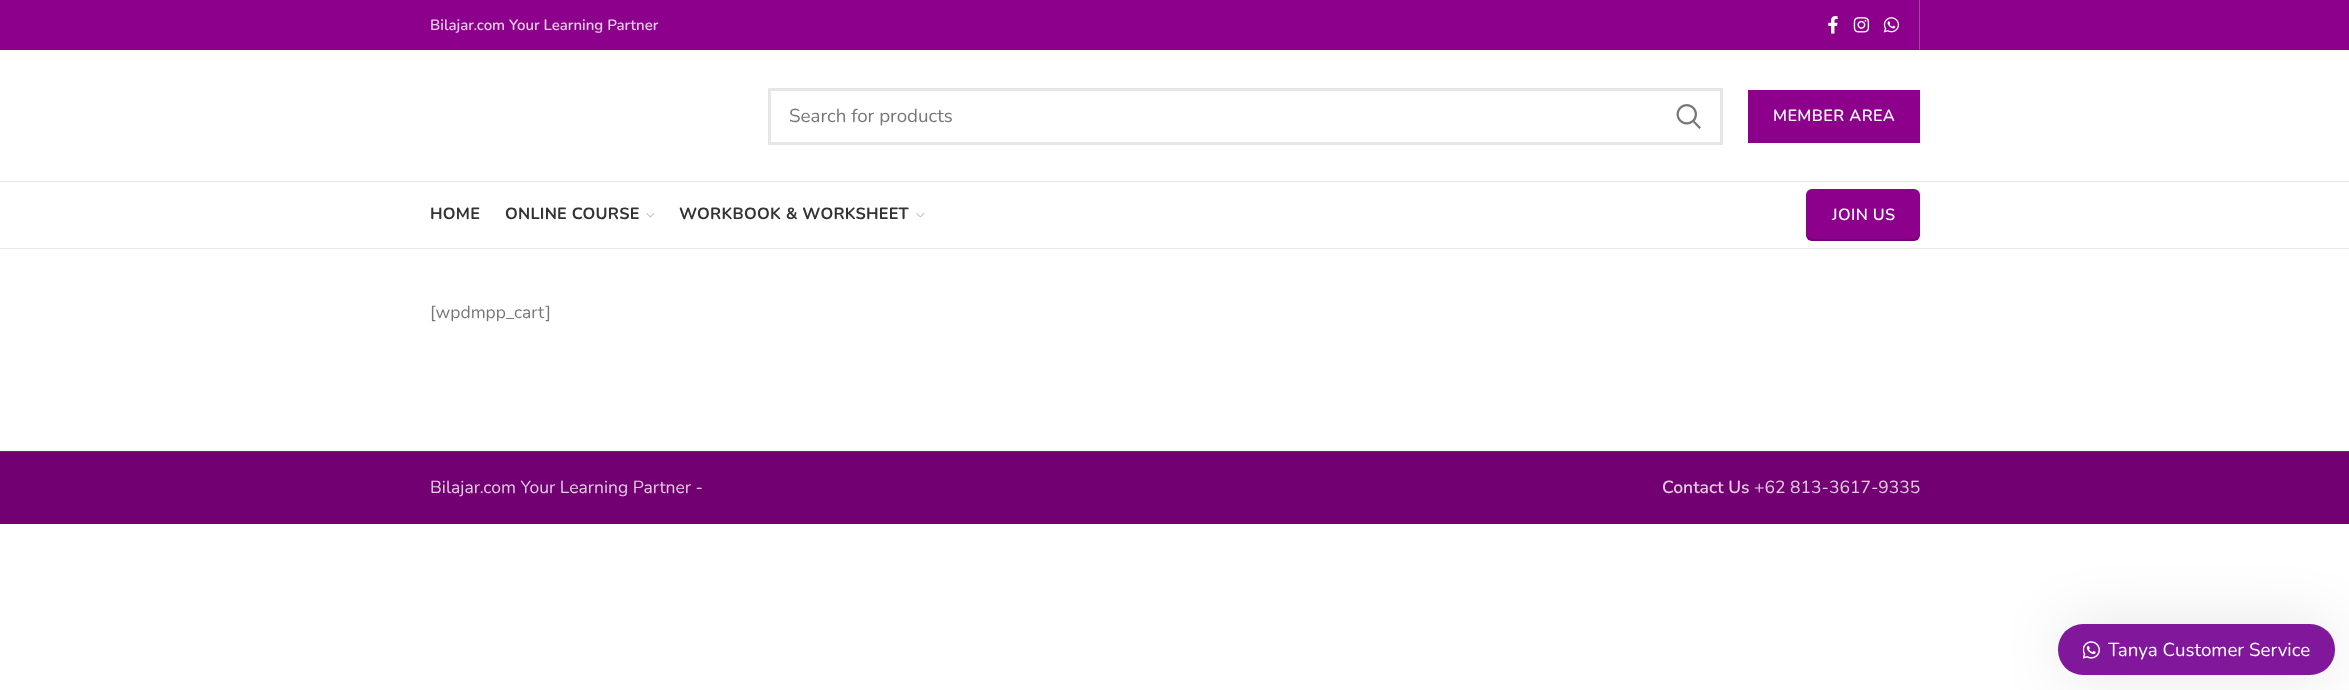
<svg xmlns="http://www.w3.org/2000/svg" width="2349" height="690">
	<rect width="100%" height="100%" fill="#FFFFFF" />
	<rect x="0" y="0" width="2349" height="50" fill="#8C008C" />
	<text x="430" y="30" font-family="Nunito" font-size="15" font-weight="600" fill="#E3CCE3">Bilajar.com Your Learning Partner</text>
	<image x="1828" y="16" width="10" height="18" href="assets/img1.png" />
	<image x="1853" y="17" width="17" height="16" href="assets/img2.png" />
	<image x="1883" y="17" width="17" height="16" href="assets/img3.png" />
	<rect x="1919" y="0" width="1" height="50" fill="#A940A9" />
	<rect x="0" y="181" width="2349" height="1" fill="#E8E8E8" />
	<rect x="769.5" y="89.5" width="952" height="54" fill="none" stroke="#E6E6E6" stroke-width="3" />
	<text x="789" y="122" font-family="Nunito" font-size="18.75" fill="#777777">Search for products</text>
	<image x="1676" y="104" width="25" height="25" href="assets/img4.png" />
	<rect x="1748" y="90" width="172" height="53" fill="#8C008C" />
	<text x="1773" y="121" font-family="Nunito" font-size="16.25" font-weight="600" letter-spacing="0.4" fill="#FFFFFF">MEMBER AREA</text>
	<rect x="0" y="248" width="2349" height="1" fill="#E8E8E8" />
	<g font-family="Nunito" font-size="16.25" font-weight="700" letter-spacing="0.25" fill="#333333">
		<text x="430" y="219">HOME</text>
		<text x="505" y="219">ONLINE COURSE</text>
	</g>
	<image x="646" y="213" width="9" height="5" href="assets/img5.png" />
	<text x="679" y="219" font-family="Nunito" font-size="16.25" font-weight="700" letter-spacing="0.25" fill="#333333">WORKBOOK &amp; WORKSHEET</text>
	<image x="916" y="213" width="9" height="5" href="assets/img5.png" />
	<rect x="1806" y="189" width="114" height="52" rx="6" fill="#8C008C" />
	<path d="M1806 232V235C1806 238 1809 241 1812 241H1914C1917 241 1920 238 1920 235V232C1920 236 1917 239 1914 239H1812C1809 239 1806 236 1806 232Z" fill="#000000" fill-opacity="0.15" />
	<text x="1832" y="220" font-family="Nunito" font-size="16.25" font-weight="600" letter-spacing="0.4" fill="#FFFFFF">JOIN US</text>
	<text x="430" y="318" font-family="Nunito" font-size="17.5" fill="#777777">[wpdmpp_cart]</text>
	<rect x="0" y="452" width="2349" height="72" fill="#730072" />
	<rect x="0" y="451" width="2349" height="1" fill="#811A80" />
	<text x="430" y="493" font-family="Nunito" font-size="17.5" fill="#E3CCE3">Bilajar.com Your Learning Partner -</text>
	<text x="1662" y="493" font-family="Nunito" font-size="17.5" font-weight="600" fill="#E3CCE3">Contact Us</text>
	<text x="1754" y="493" font-family="Nunito" font-size="17.5" fill="#E3CCE3">+62 813-3617-9335</text>
	<rect x="2058" y="624" width="277" height="51" rx="25" fill="#000000" fill-opacity="0.1" filter="blur(31px)" />
	<rect x="2058" y="624" width="277" height="51" rx="25" fill="#81179B" />
	<image x="2083" y="641" width="17" height="18" href="assets/img6.png" />
	<text x="2108" y="656" font-family="Nunito" font-size="18.75" fill="#FFFFFF">Tanya Customer Service</text>
</svg>
